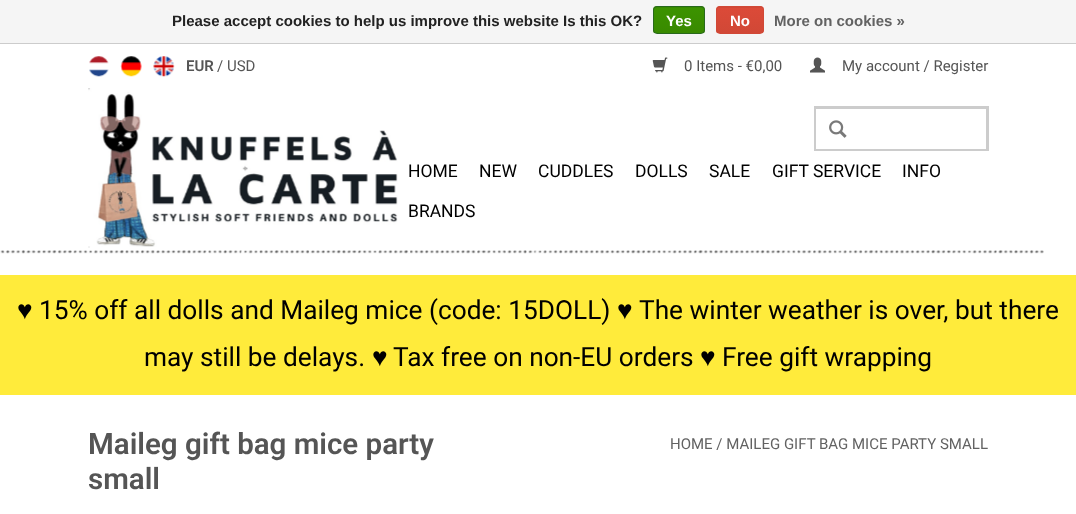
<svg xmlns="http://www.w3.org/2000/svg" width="1076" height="514">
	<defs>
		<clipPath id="clip1"><rect x="653" y="6" width="52" height="28" rx="4" /></clipPath>
		<linearGradient id="g1" gradientUnits="userSpaceOnUse" x1="679" y1="-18" x2="679" y2="7.5"><stop offset="0" stop-color="#3C9300" /><stop offset="1" stop-color="#398A00" /></linearGradient>
		<linearGradient id="g2" gradientUnits="userSpaceOnUse" x1="679" y1="7.5" x2="679" y2="33"><stop offset="0" stop-color="#3C9300" /><stop offset="1" stop-color="#398A00" /></linearGradient>
		<clipPath id="clip2"><rect x="716" y="6" width="48" height="28" rx="4" /></clipPath>
		<linearGradient id="g3" gradientUnits="userSpaceOnUse" x1="740" y1="-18" x2="740" y2="7.5"><stop offset="0" stop-color="#DC4A38" /><stop offset="1" stop-color="#D14836" /></linearGradient>
		<linearGradient id="g4" gradientUnits="userSpaceOnUse" x1="740" y1="7.5" x2="740" y2="33"><stop offset="0" stop-color="#DC4A38" /><stop offset="1" stop-color="#D14836" /></linearGradient>
	</defs>
	<rect width="100%" height="100%" fill="#FFFFFF" />
	<rect x="0" y="0" width="1076" height="43" fill="#F5F5F5" />
	<rect x="0" y="43" width="1076" height="1" fill="#CCCCCC" />
	<text x="172" y="26" font-family="Liberation Sans" font-size="15" font-weight="700" fill="#222222">Please accept cookies to help us improve this website Is this OK?</text>
	<g clip-path="url(#clip1)">
		<rect x="653" y="6" width="52" height="2" fill="url(#g1)" />
		<rect x="653" y="8" width="52" height="25" fill="url(#g2)" />
	</g>
	<rect x="653.5" y="6.5" width="51" height="27" rx="3.5" fill="none" stroke="#29691D" />
	<text x="666" y="26" font-family="Liberation Sans" font-size="15" font-weight="700" fill="#FFFFFF">Yes</text>
	<g clip-path="url(#clip2)">
		<rect x="716" y="6" width="48" height="2" fill="url(#g3)" />
		<rect x="716" y="8" width="48" height="25" fill="url(#g4)" />
	</g>
	<rect x="716.5" y="6.5" width="47" height="27" rx="3.5" fill="none" stroke="#D14836" />
	<text x="730" y="26" font-family="Liberation Sans" font-size="15" font-weight="700" fill="#FFFFFF">No</text>
	<text x="774" y="26" font-family="Liberation Sans" font-size="15" font-weight="700" fill="#626262">More on cookies »</text>
	<image x="89" y="56" width="20" height="21" href="assets/img1.png" />
	<image x="120" y="56" width="22" height="21" href="assets/img2.png" />
	<image x="153" y="56" width="22" height="21" href="assets/img3.png" />
	<text x="186" y="71" font-family="Roboto" font-size="15" font-weight="600" fill="#555555">EUR</text>
	<text x="217" y="71" font-family="Roboto" font-size="15" fill="#555555">/ USD</text>
	<image x="652" y="57" width="16" height="16" href="assets/img4.png" />
	<text x="684" y="71" font-family="Roboto" font-size="15" fill="#555555">0 Items - €0,00</text>
	<image x="810" y="57" width="15" height="16" href="assets/img5.png" />
	<text x="842" y="71" font-family="Roboto" font-size="15" fill="#555555">My account / Register</text>
	<image x="88" y="88" width="310" height="160" href="assets/img6.png" />
	<rect x="815.5" y="107.5" width="172" height="42" fill="none" stroke="#CCCCCC" stroke-width="3" />
	<rect x="816" y="109" width="170" height="40" fill="#FFFFFF" />
	<image x="829" y="120" width="18" height="18" href="assets/img7.png" />
	<g font-family="Roboto" font-size="17.5" fill="#000000">
		<text x="408" y="177">HOME</text>
		<text x="479" y="177">NEW</text>
		<text x="538" y="177">CUDDLES</text>
		<text x="635" y="177">DOLLS</text>
		<text x="709" y="177">SALE</text>
		<text x="772" y="177">GIFT SERVICE</text>
		<text x="902" y="177">INFO</text>
		<text x="408" y="217">BRANDS</text>
	</g>
	<image x="0" y="250" width="1044" height="4" href="assets/img8.png" />
	<rect x="0" y="275" width="1076" height="120" fill="#FFEB3B" />
	<text x="17" y="319" font-family="Liberation Sans" font-size="26.25" fill="#000000">♥</text>
	<text x="39" y="319" font-family="Roboto" font-size="26.25" fill="#000000">15% off all dolls and Maileg mice (code: 15DOLL)</text>
	<text x="617" y="319" font-family="Liberation Sans" font-size="26.25" fill="#000000">♥</text>
	<g font-family="Roboto" font-size="26.25" fill="#000000">
		<text x="639" y="319">The winter weather is over, but there</text>
		<text x="144" y="366">may still be delays.</text>
	</g>
	<text x="372" y="366" font-family="Liberation Sans" font-size="26.25" fill="#000000">♥</text>
	<text x="393" y="366" font-family="Roboto" font-size="26.25" fill="#000000">Tax free on non-EU orders</text>
	<text x="700" y="366" font-family="Liberation Sans" font-size="26.25" fill="#000000">♥</text>
	<text x="722" y="366" font-family="Roboto" font-size="26.25" fill="#000000">Free gift wrapping</text>
	<g font-family="Roboto" font-size="29.5" font-weight="600" fill="#555555">
		<text x="88" y="454">Maileg gift bag mice party</text>
		<text x="88" y="489">small</text>
	</g>
	<text x="670" y="449" font-family="Roboto" font-size="15" fill="#626262">HOME / MAILEG GIFT BAG MICE PARTY SMALL</text>
</svg>
